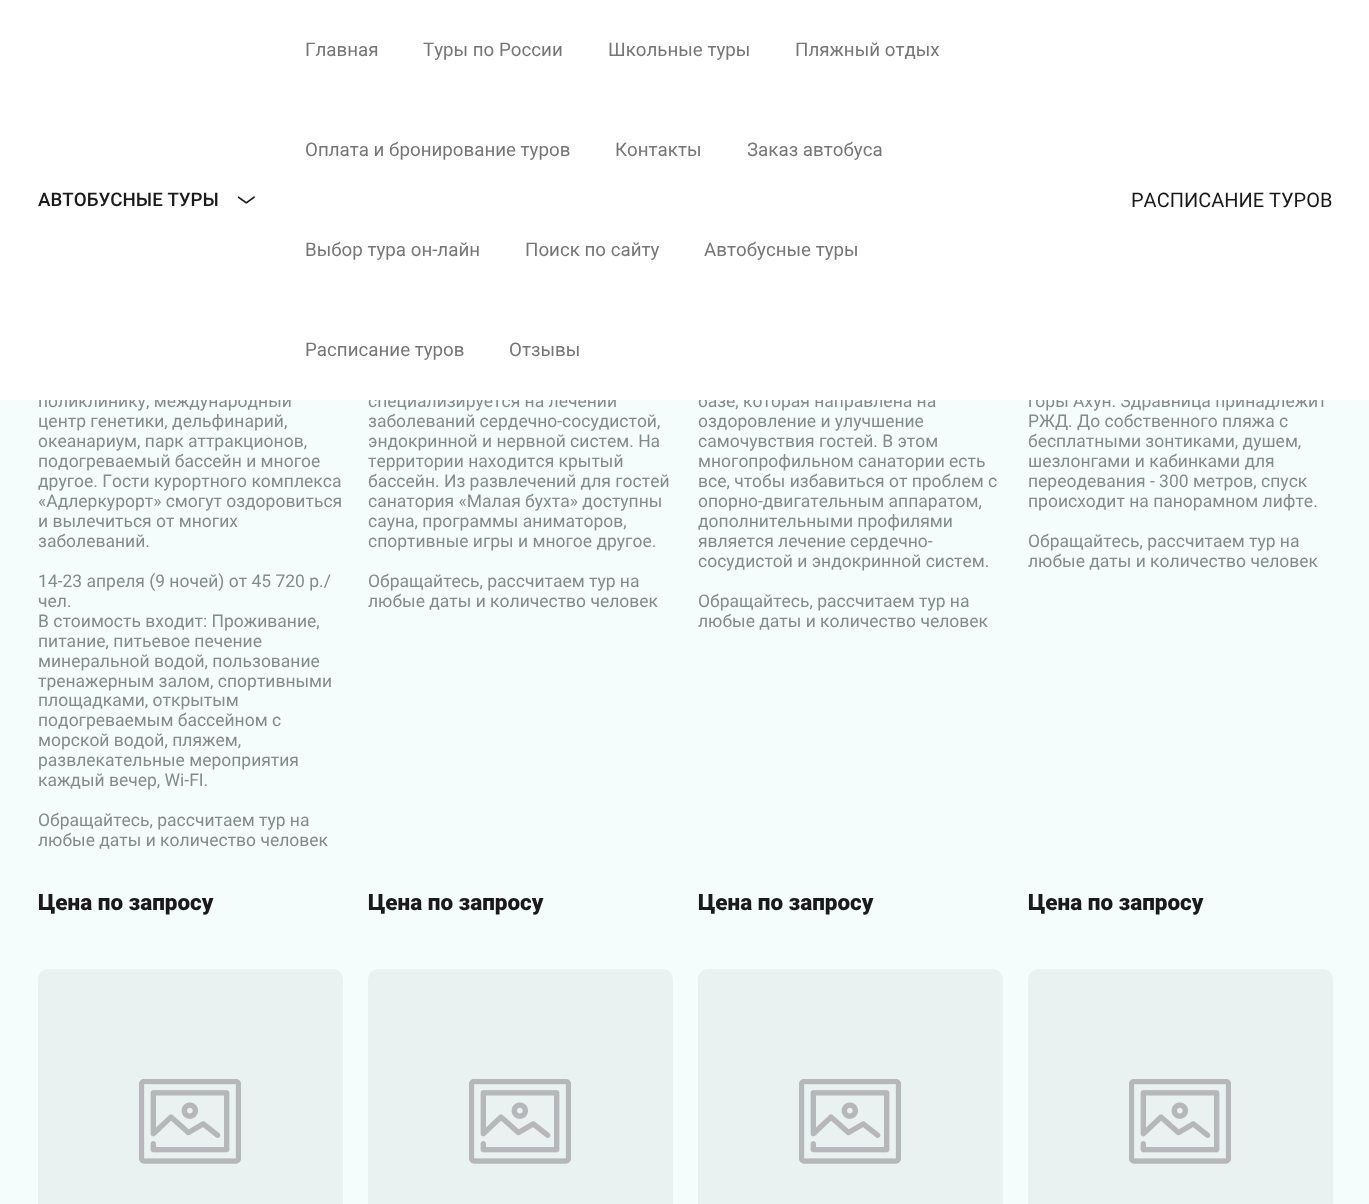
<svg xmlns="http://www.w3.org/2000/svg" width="1369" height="1204">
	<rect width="100%" height="100%" fill="#F5FCFC" />
	<g font-family="Roboto" font-size="17.5" fill="#878A8A">
		<text x="38" y="407">поликлинику, международный</text>
		<text x="368" y="407">специализируется на лечении</text>
		<text x="698" y="407">базе, которая направлена на</text>
		<text x="1028" y="407">горы Ахун. Здравница принадлежит</text>
	</g>
	<rect x="0" y="0" width="1369" height="400" fill="#FFFFFF" />
	<text x="38" y="206" font-family="Roboto" font-size="18.75" font-weight="500" fill="#1A1A1A">АВТОБУСНЫЕ ТУРЫ</text>
	<image x="238" y="196" width="17" height="8" href="assets/img1.png" />
	<g font-family="Roboto" font-size="18.75" fill="#767676">
		<text x="305" y="56">Главная</text>
		<text x="423" y="56">Туры по России</text>
		<text x="608" y="56">Школьные туры</text>
		<text x="795" y="56">Пляжный отдых</text>
		<text x="305" y="156">Оплата и бронирование туров</text>
		<text x="615" y="156">Контакты</text>
		<text x="747" y="156">Заказ автобуса</text>
		<text x="305" y="256">Выбор тура он-лайн</text>
		<text x="525" y="256">Поиск по сайту</text>
		<text x="704" y="256">Автобусные туры</text>
		<text x="305" y="356">Расписание туров</text>
		<text x="509" y="356">Отзывы</text>
	</g>
	<text x="1131" y="207" font-family="Roboto" font-size="20" fill="#1A1A1A">РАСПИСАНИЕ ТУРОВ</text>
	<g font-family="Roboto" font-size="17.5" fill="#878A8A">
		<text x="38" y="427">центр генетики, дельфинарий,</text>
		<text x="38" y="447">океанариум, парк аттракционов,</text>
		<text x="38" y="467">подогреваемый бассейн и многое</text>
		<text x="38" y="487">другое. Гости курортного комплекса</text>
		<text x="38" y="507">«Адлеркурорт» смогут оздоровиться</text>
		<text x="38" y="527">и вылечиться от многих</text>
		<text x="38" y="547">заболеваний.</text>
		<text x="38" y="587">14-23 апреля (9 ночей) от 45 720 р./</text>
		<text x="38" y="607">чел.</text>
		<text x="38" y="627">В стоимость входит: Проживание,</text>
		<text x="38" y="647">питание, питьевое печение</text>
		<text x="38" y="667">минеральной водой, пользование</text>
		<text x="38" y="687">тренажерным залом, спортивными</text>
		<text x="38" y="706">площадками, открытым</text>
		<text x="38" y="726">подогреваемым бассейном с</text>
		<text x="38" y="746">морской водой, пляжем,</text>
		<text x="38" y="766">развлекательные мероприятия</text>
		<text x="38" y="786">каждый вечер, Wi-FI.</text>
		<text x="38" y="826">Обращайтесь, рассчитаем тур на</text>
		<text x="38" y="846">любые даты и количество человек</text>
	</g>
	<text x="38" y="910" font-family="Roboto" font-size="22.5" font-weight="900" fill="#1A1A1A">Цена по запросу</text>
	<g font-family="Roboto" font-size="17.5" fill="#878A8A">
		<text x="368" y="427">заболеваний сердечно-сосудистой,</text>
		<text x="368" y="447">эндокринной и нервной систем. На</text>
		<text x="368" y="467">территории находится крытый</text>
		<text x="368" y="487">бассейн. Из развлечений для гостей</text>
		<text x="368" y="507">санатория «Малая бухта» доступны</text>
		<text x="368" y="527">сауна, программы аниматоров,</text>
		<text x="368" y="547">спортивные игры и многое другое.</text>
		<text x="368" y="587">Обращайтесь, рассчитаем тур на</text>
		<text x="368" y="607">любые даты и количество человек</text>
	</g>
	<text x="368" y="910" font-family="Roboto" font-size="22.5" font-weight="900" fill="#1A1A1A">Цена по запросу</text>
	<g font-family="Roboto" font-size="17.5" fill="#878A8A">
		<text x="698" y="427">оздоровление и улучшение</text>
		<text x="698" y="447">самочувствия гостей. В этом</text>
		<text x="698" y="467">многопрофильном санатории есть</text>
		<text x="698" y="487">все, чтобы избавиться от проблем с</text>
		<text x="698" y="507">опорно-двигательным аппаратом,</text>
		<text x="698" y="527">дополнительными профилями</text>
		<text x="698" y="547">является лечение сердечно-</text>
		<text x="698" y="567">сосудистой и эндокринной систем.</text>
		<text x="698" y="607">Обращайтесь, рассчитаем тур на</text>
		<text x="698" y="627">любые даты и количество человек</text>
	</g>
	<text x="698" y="910" font-family="Roboto" font-size="22.5" font-weight="900" fill="#1A1A1A">Цена по запросу</text>
	<g font-family="Roboto" font-size="17.5" fill="#878A8A">
		<text x="1028" y="427">РЖД. До собственного пляжа с</text>
		<text x="1028" y="447">бесплатными зонтиками, душем,</text>
		<text x="1028" y="467">шезлонгами и кабинками для</text>
		<text x="1028" y="487">переодевания - 300 метров, спуск</text>
		<text x="1028" y="507">происходит на панорамном лифте.</text>
		<text x="1028" y="547">Обращайтесь, рассчитаем тур на</text>
		<text x="1028" y="567">любые даты и количество человек</text>
	</g>
	<text x="1028" y="910" font-family="Roboto" font-size="22.5" font-weight="900" fill="#1A1A1A">Цена по запросу</text>
	<rect x="38" y="969" width="305" height="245" rx="10" fill="#EAF1F1" />
	<image x="139" y="1079" width="102" height="85" href="assets/img2.png" />
	<rect x="368" y="969" width="305" height="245" rx="10" fill="#EAF1F1" />
	<image x="469" y="1079" width="102" height="85" href="assets/img2.png" />
	<rect x="698" y="969" width="305" height="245" rx="10" fill="#EAF1F1" />
	<image x="799" y="1079" width="102" height="85" href="assets/img2.png" />
	<rect x="1028" y="969" width="305" height="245" rx="10" fill="#EAF1F1" />
	<image x="1129" y="1079" width="102" height="85" href="assets/img2.png" />
</svg>
